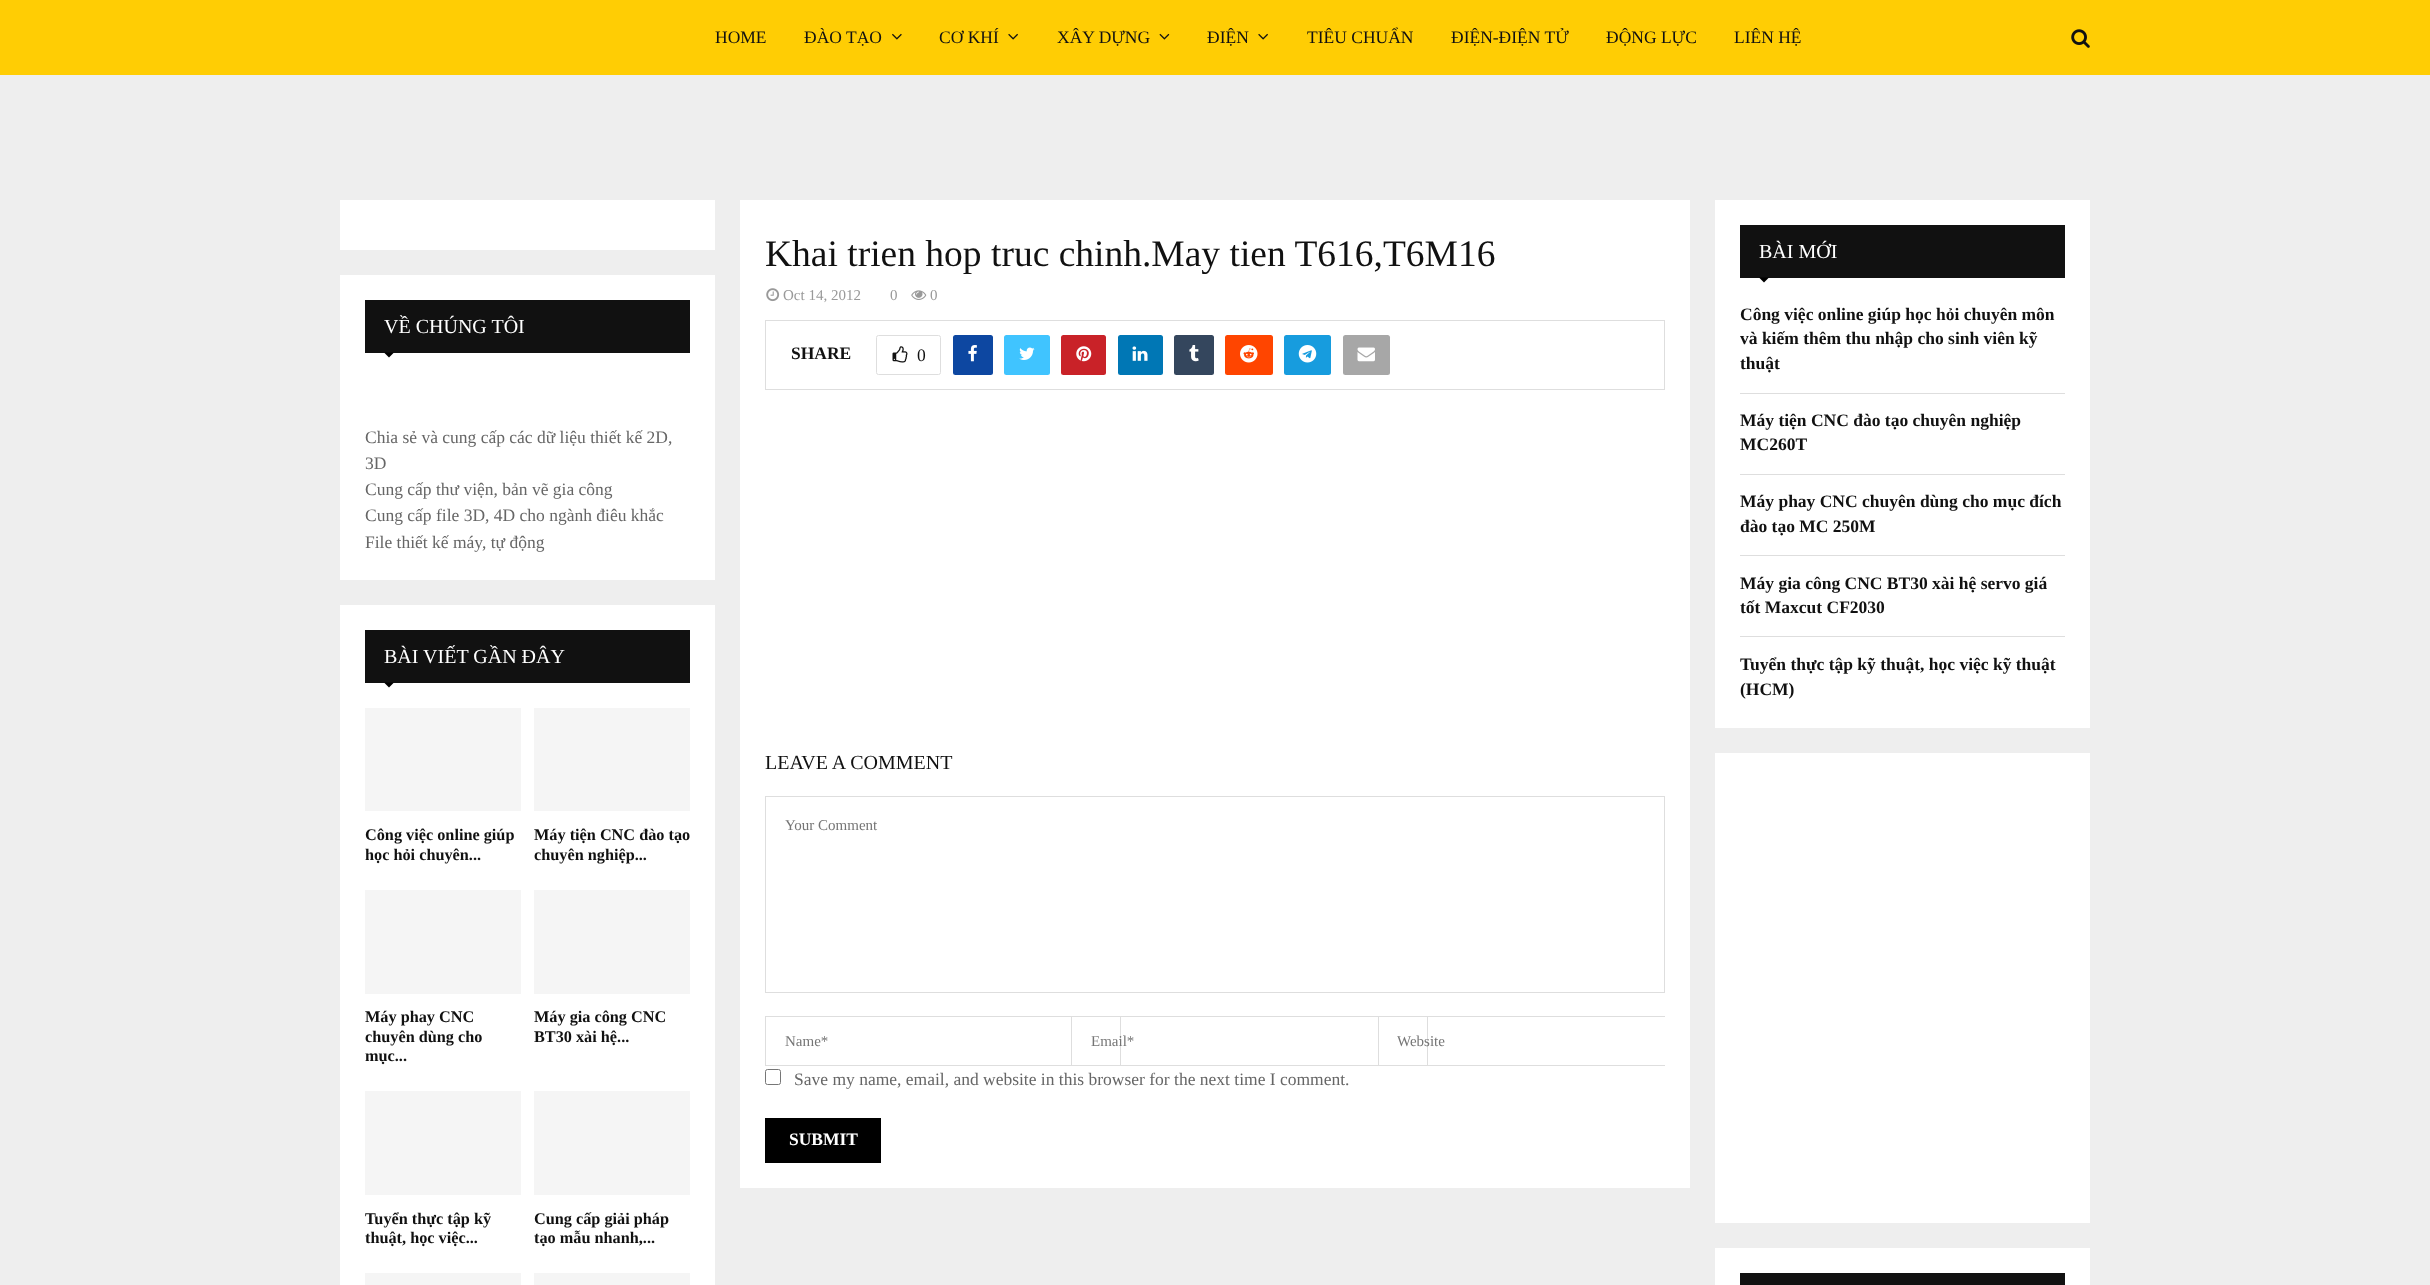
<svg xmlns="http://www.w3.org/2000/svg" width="2430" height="1285">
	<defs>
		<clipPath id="clip1"><rect x="765" y="720" width="900" height="443" /></clipPath>
	</defs>
	<rect width="100%" height="100%" fill="#EEEEEE" />
	<rect x="0" y="0" width="2430" height="75" fill="#FFCD04" />
	<g font-family="Liberation Serif" font-size="17.5" fill="#111111">
		<text x="715" y="43">HOME</text>
		<text x="804" y="43">ĐÀO TẠO</text>
	</g>
	<image x="892" y="33" width="10" height="7" href="assets/img1.png" />
	<text x="939" y="43" font-family="Liberation Serif" font-size="17.5" fill="#111111">CƠ KHÍ</text>
	<image x="1008" y="33" width="10" height="7" href="assets/img2.png" />
	<text x="1057" y="43" font-family="Liberation Serif" font-size="17.5" fill="#111111">XÂY DỰNG</text>
	<image x="1159" y="33" width="11" height="7" href="assets/img3.png" />
	<text x="1207" y="43" font-family="Liberation Serif" font-size="17.5" fill="#111111">ĐIỆN</text>
	<image x="1258" y="33" width="10" height="7" href="assets/img2.png" />
	<g font-family="Liberation Serif" font-size="17.5" fill="#111111">
		<text x="1307" y="43">TIÊU CHUẨN</text>
		<text x="1451" y="43">ĐIỆN-ĐIỆN TỬ</text>
		<text x="1606" y="43">ĐỘNG LỰC</text>
		<text x="1734" y="43">LIÊN HỆ</text>
	</g>
	<image x="2071" y="29" width="19" height="19" href="assets/img4.png" />
	<rect x="340" y="200" width="375" height="50" fill="#FFFFFF" />
	<rect x="340" y="275" width="375" height="305" fill="#FFFFFF" />
	<rect x="365" y="300" width="325" height="53" fill="#111111" />
	<text x="384" y="333" font-family="Liberation Serif" font-size="20" fill="#FFFFFF">VỀ CHÚNG TÔI</text>
	<path d="M384 352.5H394L389 357.5Z" fill="#000000" />
	<g font-family="Liberation Serif" font-size="17.5" fill="#666666">
		<text x="365" y="443">Chia sẻ và cung cấp các dữ liệu thiết kế 2D,</text>
		<text x="365" y="469">3D</text>
		<text x="365" y="495">Cung cấp thư viện, bản vẽ gia công</text>
		<text x="365" y="521">Cung cấp file 3D, 4D cho ngành điêu khắc</text>
		<text x="365" y="548">File thiết kế máy, tự động</text>
	</g>
	<rect x="340" y="605" width="375" height="680" fill="#FFFFFF" />
	<rect x="365" y="630" width="325" height="53" fill="#111111" />
	<text x="384" y="663" font-family="Liberation Serif" font-size="20" fill="#FFFFFF">BÀI VIẾT GẦN ĐÂY</text>
	<path d="M384 682.5H394L389 687.5Z" fill="#000000" />
	<rect x="365" y="708" width="156" height="103" fill="#F5F5F5" />
	<g font-family="Liberation Serif" font-size="16.25" font-weight="700" fill="#111111">
		<text x="365" y="840">Công việc online giúp</text>
		<text x="365" y="860">học hỏi chuyên...</text>
	</g>
	<rect x="534" y="708" width="156" height="103" fill="#F5F5F5" />
	<g font-family="Liberation Serif" font-size="16.25" font-weight="700" fill="#111111">
		<text x="534" y="840">Máy tiện CNC đào tạo</text>
		<text x="534" y="860">chuyên nghiệp...</text>
	</g>
	<rect x="365" y="890" width="156" height="104" fill="#F5F5F5" />
	<g font-family="Liberation Serif" font-size="16.25" font-weight="700" fill="#111111">
		<text x="365" y="1022">Máy phay CNC</text>
		<text x="365" y="1042">chuyên dùng cho</text>
		<text x="365" y="1061">mục...</text>
	</g>
	<rect x="534" y="890" width="156" height="104" fill="#F5F5F5" />
	<g font-family="Liberation Serif" font-size="16.25" font-weight="700" fill="#111111">
		<text x="534" y="1022">Máy gia công CNC</text>
		<text x="534" y="1042">BT30 xài hệ...</text>
	</g>
	<rect x="365" y="1091" width="156" height="104" fill="#F5F5F5" />
	<g font-family="Liberation Serif" font-size="16.25" font-weight="700" fill="#111111">
		<text x="365" y="1224">Tuyển thực tập kỹ</text>
		<text x="365" y="1243">thuật, học việc...</text>
	</g>
	<rect x="534" y="1091" width="156" height="104" fill="#F5F5F5" />
	<g font-family="Liberation Serif" font-size="16.25" font-weight="700" fill="#111111">
		<text x="534" y="1224">Cung cấp giải pháp</text>
		<text x="534" y="1243">tạo mẫu nhanh,...</text>
	</g>
	<rect x="365" y="1273" width="156" height="12" fill="#F5F5F5" />
	<rect x="534" y="1273" width="156" height="12" fill="#F5F5F5" />
	<rect x="740" y="200" width="950" height="988" fill="#FFFFFF" />
	<text x="765" y="266" font-family="Liberation Serif" font-size="37.5" fill="#111111">Khai trien hop truc chinh.May tien T616,T6M16</text>
	<image x="766" y="288" width="14" height="14" href="assets/img5.png" />
	<g font-family="Liberation Serif" font-size="15" fill="#999999">
		<text x="783" y="300">Oct 14, 2012</text>
		<text x="890" y="300">0</text>
	</g>
	<image x="911" y="290" width="16" height="10" href="assets/img6.png" />
	<text x="930" y="300" font-family="Liberation Serif" font-size="15" fill="#999999">0</text>
	<rect x="765.5" y="320.5" width="899" height="69" fill="none" stroke="#DEDEDE" />
	<text x="791" y="359" font-family="Liberation Serif" font-size="17.5" font-weight="700" fill="#111111">SHARE</text>
	<rect x="876.5" y="335.5" width="64" height="39" rx="2" fill="none" stroke="#DEDEDE" />
	<image x="892" y="346" width="16" height="17" href="assets/img7.png" />
	<text x="917" y="361" font-family="Liberation Serif" font-size="17.5" fill="#111111">0</text>
	<rect x="953" y="335" width="40" height="40" rx="2.5" fill="#0D47A1" />
	<image x="968" y="345" width="9" height="17" href="assets/img8.png" />
	<rect x="1004" y="335" width="46" height="40" rx="2.5" fill="#40C4FF" />
	<image x="1019" y="347" width="16" height="13" href="assets/img9.png" />
	<rect x="1061" y="335" width="45" height="40" rx="2.5" fill="#C92228" />
	<image x="1076" y="346" width="16" height="16" href="assets/img10.png" />
	<rect x="1118" y="335" width="45" height="40" rx="2.5" fill="#0077B5" />
	<image x="1132" y="346" width="16" height="15" href="assets/img11.png" />
	<rect x="1174" y="335" width="40" height="40" rx="2.5" fill="#34465D" />
	<image x="1189" y="345" width="10" height="17" href="assets/img12.png" />
	<rect x="1225" y="335" width="48" height="40" rx="2.5" fill="#FF4500" />
	<image x="1240" y="345" width="18" height="18" href="assets/img13.png" />
	<rect x="1284" y="335" width="47" height="40" rx="2.5" fill="#179CDE" />
	<image x="1298" y="345" width="19" height="18" href="assets/img14.png" />
	<rect x="1343" y="335" width="47" height="40" rx="2.5" fill="#A7A7A7" />
	<image x="1357" y="347" width="18" height="15" href="assets/img15.png" />
	<text x="765" y="769" font-family="Liberation Serif" font-size="20" fill="#111111">LEAVE A COMMENT</text>
	<rect x="765.5" y="796.5" width="899" height="196" fill="none" stroke="#DEDEDE" />
	<text x="785" y="830" font-family="Liberation Serif" font-size="15" fill="#757575">Your Comment</text>
	<rect x="765.5" y="1016.5" width="355" height="49" fill="none" stroke="#DEDEDE" />
	<text x="785" y="1046" font-family="Liberation Serif" font-size="15" fill="#757575">Name*</text>
	<rect x="1071.5" y="1016.5" width="356" height="49" fill="none" stroke="#DEDEDE" />
	<text x="1091" y="1046" font-family="Liberation Serif" font-size="15" fill="#757575">Email*</text>
	<g clip-path="url(#clip1)">
		<rect x="1378.5" y="1016.5" width="355" height="49" fill="none" stroke="#DEDEDE" />
	</g>
	<text x="1397" y="1046" font-family="Liberation Serif" font-size="15" fill="#757575">Website</text>
	<rect x="765.5" y="1069.5" width="15" height="15" rx="2" fill="none" stroke="#767676" />
	<text x="794" y="1085" font-family="Liberation Serif" font-size="17.5" fill="#666666">Save my name, email, and website in this browser for the next time I comment.</text>
	<rect x="765" y="1118" width="116" height="45" fill="#000000" />
	<text x="789" y="1145" font-family="Liberation Serif" font-size="17.5" font-weight="700" fill="#FFFFFF">SUBMIT</text>
	<rect x="1715" y="200" width="375" height="528" fill="#FFFFFF" />
	<rect x="1740" y="225" width="325" height="53" fill="#111111" />
	<text x="1759" y="258" font-family="Liberation Serif" font-size="20" fill="#FFFFFF">BÀI MỚI</text>
	<path d="M1759 277.5H1769L1764 282.5Z" fill="#000000" />
	<rect x="1740" y="393" width="325" height="1" fill="#DEDEDE" />
	<g font-family="Liberation Serif" font-size="17.5" font-weight="700" fill="#111111">
		<text x="1740" y="320">Công việc online giúp học hỏi chuyên môn</text>
		<text x="1740" y="344">và kiếm thêm thu nhập cho sinh viên kỹ</text>
		<text x="1740" y="369">thuật</text>
	</g>
	<rect x="1740" y="474" width="325" height="1" fill="#DEDEDE" />
	<g font-family="Liberation Serif" font-size="17.5" font-weight="700" fill="#111111">
		<text x="1740" y="426">Máy tiện CNC đào tạo chuyên nghiệp</text>
		<text x="1740" y="450">MC260T</text>
	</g>
	<rect x="1740" y="555" width="325" height="1" fill="#DEDEDE" />
	<g font-family="Liberation Serif" font-size="17.5" font-weight="700" fill="#111111">
		<text x="1740" y="507">Máy phay CNC chuyên dùng cho mục đích</text>
		<text x="1740" y="532">đào tạo MC 250M</text>
	</g>
	<rect x="1740" y="636" width="325" height="1" fill="#DEDEDE" />
	<g font-family="Liberation Serif" font-size="17.5" font-weight="700" fill="#111111">
		<text x="1740" y="589">Máy gia công CNC BT30 xài hệ servo giá</text>
		<text x="1740" y="613">tốt Maxcut CF2030</text>
		<text x="1740" y="670">Tuyển thực tập kỹ thuật, học việc kỹ thuật</text>
		<text x="1740" y="695">(HCM)</text>
	</g>
	<rect x="1715" y="753" width="375" height="470" fill="#FFFFFF" />
	<rect x="1715" y="1248" width="375" height="37" fill="#FFFFFF" />
	<rect x="1740" y="1273" width="325" height="12" fill="#111111" />
</svg>
